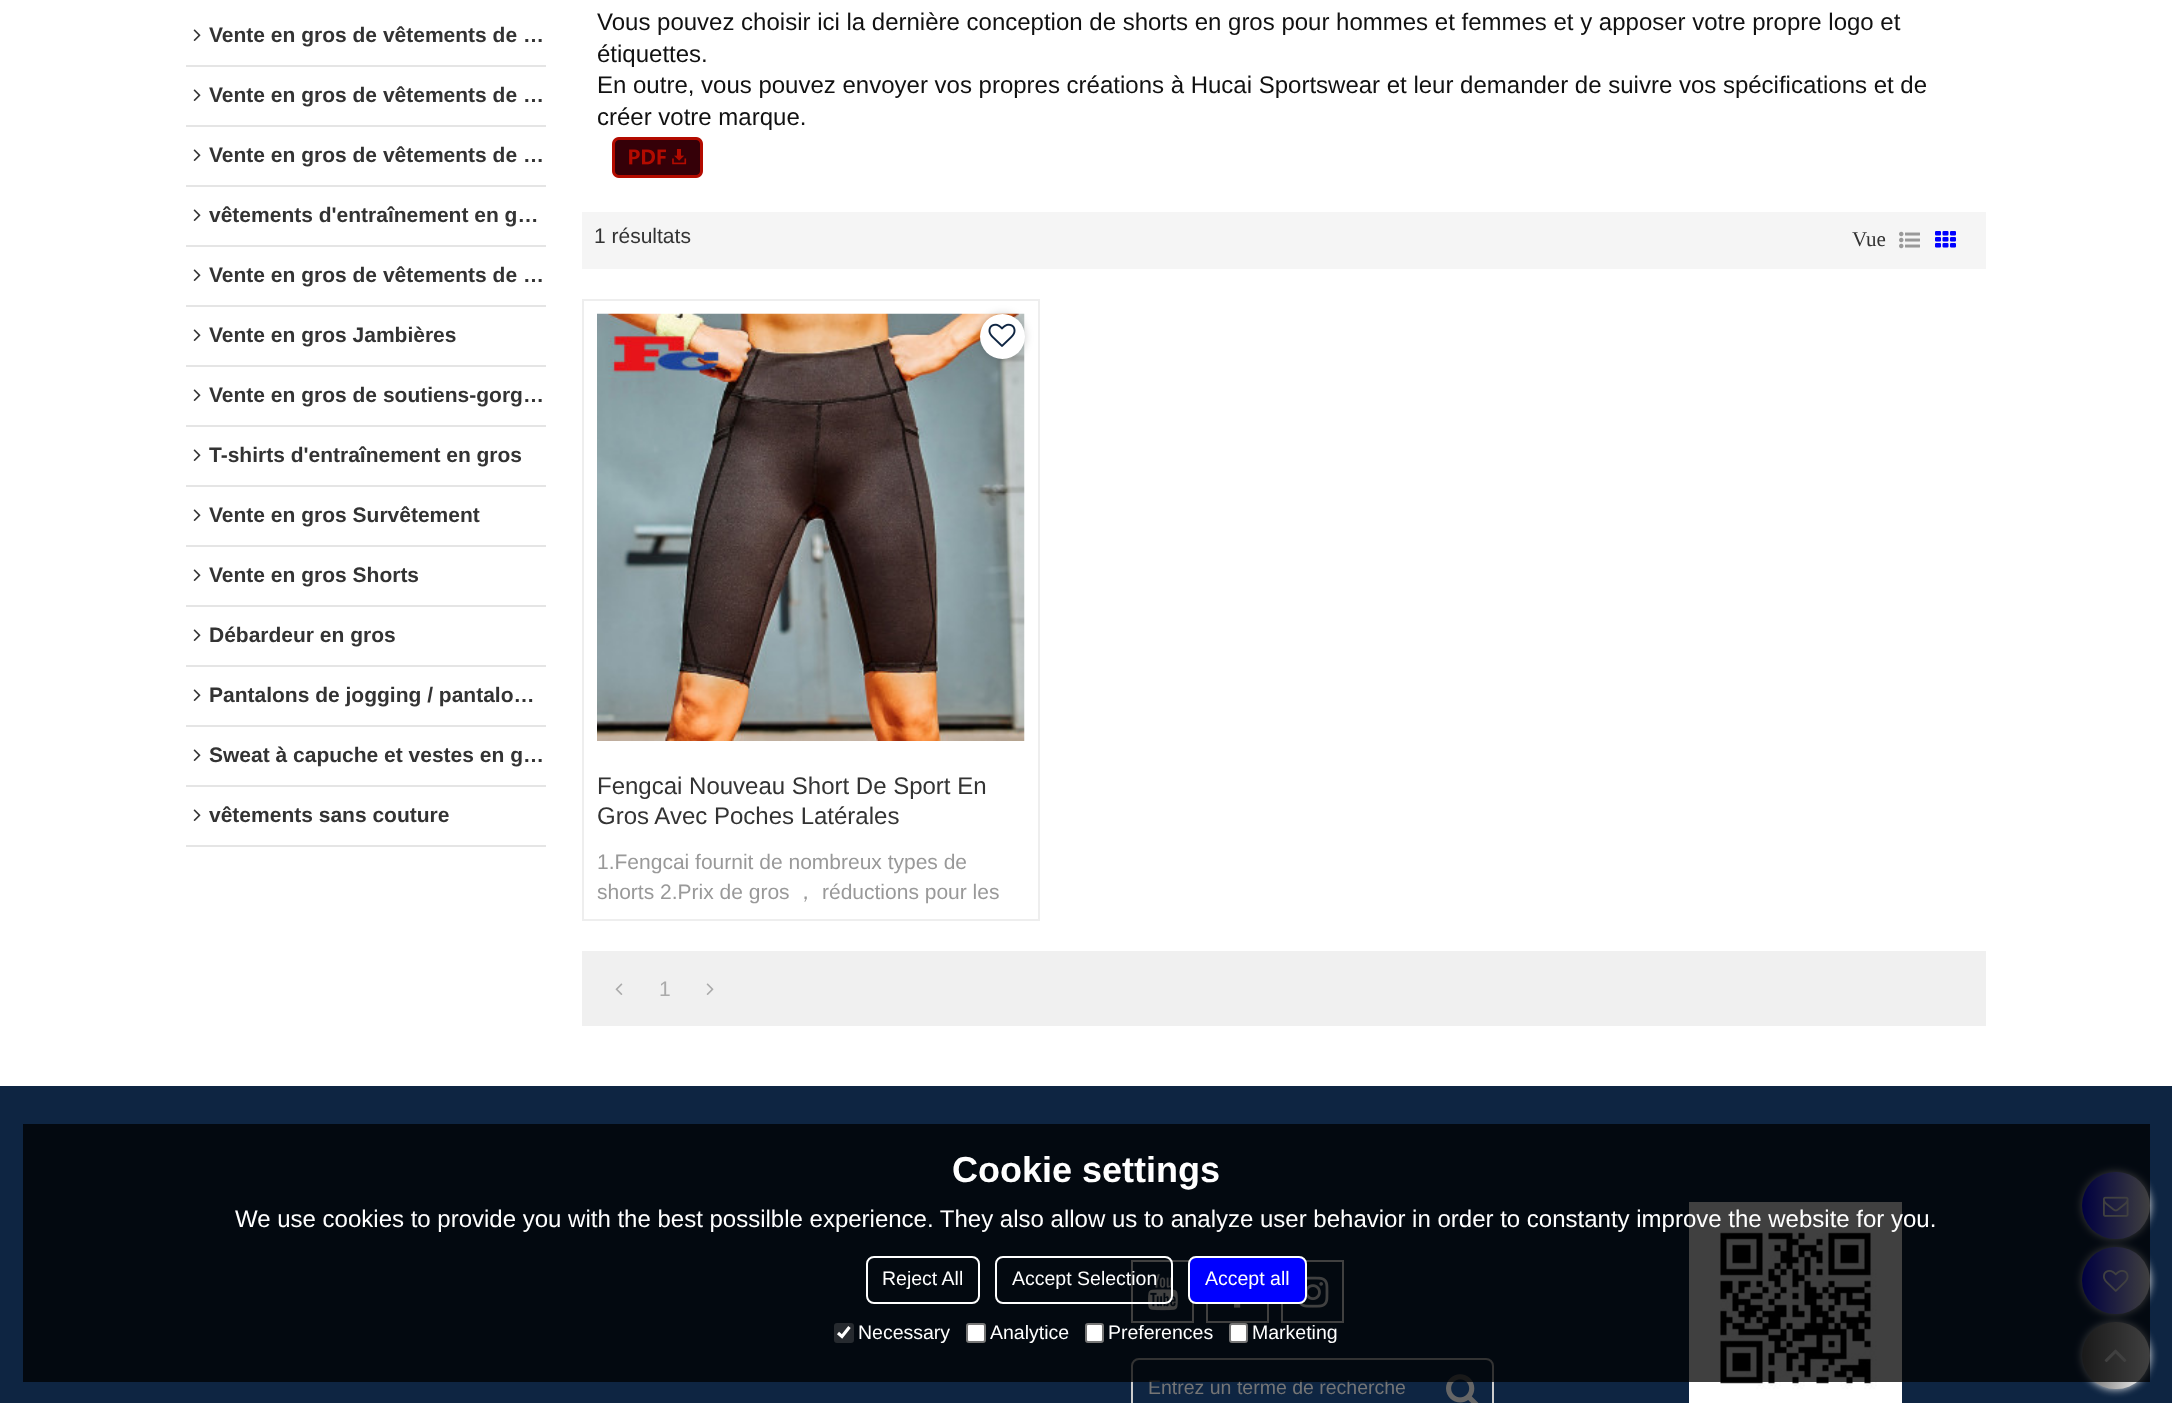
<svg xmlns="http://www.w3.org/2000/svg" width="2172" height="1403">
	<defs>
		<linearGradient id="g1" gradientUnits="userSpaceOnUse" x1="2082" y1="1205" x2="2150" y2="1205"><stop offset="0" stop-color="#0000FF" /><stop offset="1" stop-color="#FFFFFF" /></linearGradient>
		<linearGradient id="g2" gradientUnits="userSpaceOnUse" x1="2082" y1="1280" x2="2150" y2="1280"><stop offset="0" stop-color="#0000FF" /><stop offset="1" stop-color="#FFFFFF" /></linearGradient>
		<linearGradient id="g3" gradientUnits="userSpaceOnUse" x1="2082" y1="1355" x2="2150" y2="1355"><stop offset="0" stop-color="#666666" /><stop offset="1" stop-color="#FFFFFF" /></linearGradient>
	</defs>
	<rect width="100%" height="100%" fill="#FFFFFF" />
	<rect x="186" y="65" width="360" height="2" fill="#E5E5E5" />
	<image x="193" y="29" width="8" height="12" href="assets/img1.png" />
	<text x="209" y="42" font-family="Liberation Sans" font-size="21" font-weight="700" fill="#333333">Vente en gros de vêtements de …</text>
	<rect x="186" y="125" width="360" height="2" fill="#E5E5E5" />
	<image x="193" y="89" width="8" height="12" href="assets/img1.png" />
	<text x="209" y="102" font-family="Liberation Sans" font-size="21" font-weight="700" fill="#333333">Vente en gros de vêtements de …</text>
	<rect x="186" y="185" width="360" height="2" fill="#E5E5E5" />
	<image x="193" y="149" width="8" height="12" href="assets/img1.png" />
	<text x="209" y="162" font-family="Liberation Sans" font-size="21" font-weight="700" fill="#333333">Vente en gros de vêtements de …</text>
	<rect x="186" y="245" width="360" height="2" fill="#E5E5E5" />
	<image x="193" y="209" width="8" height="12" href="assets/img1.png" />
	<text x="209" y="222" font-family="Liberation Sans" font-size="21" font-weight="700" fill="#333333">vêtements d'entraînement en g…</text>
	<rect x="186" y="305" width="360" height="2" fill="#E5E5E5" />
	<image x="193" y="269" width="8" height="12" href="assets/img1.png" />
	<text x="209" y="282" font-family="Liberation Sans" font-size="21" font-weight="700" fill="#333333">Vente en gros de vêtements de …</text>
	<rect x="186" y="365" width="360" height="2" fill="#E5E5E5" />
	<image x="193" y="329" width="8" height="12" href="assets/img1.png" />
	<text x="209" y="342" font-family="Liberation Sans" font-size="21" font-weight="700" fill="#333333">Vente en gros Jambières</text>
	<rect x="186" y="425" width="360" height="2" fill="#E5E5E5" />
	<image x="193" y="389" width="8" height="12" href="assets/img1.png" />
	<text x="209" y="402" font-family="Liberation Sans" font-size="21" font-weight="700" fill="#333333">Vente en gros de soutiens-gorg…</text>
	<rect x="186" y="485" width="360" height="2" fill="#E5E5E5" />
	<image x="193" y="449" width="8" height="12" href="assets/img1.png" />
	<text x="209" y="462" font-family="Liberation Sans" font-size="21" font-weight="700" fill="#333333">T-shirts d'entraînement en gros</text>
	<rect x="186" y="545" width="360" height="2" fill="#E5E5E5" />
	<image x="193" y="509" width="8" height="12" href="assets/img1.png" />
	<text x="209" y="522" font-family="Liberation Sans" font-size="21" font-weight="700" fill="#333333">Vente en gros Survêtement</text>
	<rect x="186" y="605" width="360" height="2" fill="#E5E5E5" />
	<image x="193" y="569" width="8" height="12" href="assets/img1.png" />
	<text x="209" y="582" font-family="Liberation Sans" font-size="21" font-weight="700" fill="#333333">Vente en gros Shorts</text>
	<rect x="186" y="665" width="360" height="2" fill="#E5E5E5" />
	<image x="193" y="629" width="8" height="12" href="assets/img1.png" />
	<text x="209" y="642" font-family="Liberation Sans" font-size="21" font-weight="700" fill="#333333">Débardeur en gros</text>
	<rect x="186" y="725" width="360" height="2" fill="#E5E5E5" />
	<image x="193" y="689" width="8" height="12" href="assets/img1.png" />
	<text x="209" y="702" font-family="Liberation Sans" font-size="21" font-weight="700" fill="#333333">Pantalons de jogging / pantalo…</text>
	<rect x="186" y="785" width="360" height="2" fill="#E5E5E5" />
	<image x="193" y="749" width="8" height="12" href="assets/img1.png" />
	<text x="209" y="762" font-family="Liberation Sans" font-size="21" font-weight="700" fill="#333333">Sweat à capuche et vestes en g…</text>
	<rect x="186" y="845" width="360" height="2" fill="#E5E5E5" />
	<image x="193" y="809" width="8" height="12" href="assets/img1.png" />
	<text x="209" y="822" font-family="Liberation Sans" font-size="21" font-weight="700" fill="#333333">vêtements sans couture</text>
	<g font-family="Liberation Sans" font-size="24" fill="#111111">
		<text x="597" y="30">Vous pouvez choisir ici la dernière conception de shorts en gros pour hommes et femmes et y apposer votre propre logo et</text>
		<text x="597" y="62">étiquettes.</text>
		<text x="597" y="93">En outre, vous pouvez envoyer vos propres créations à Hucai Sportswear et leur demander de suivre vos spécifications et de</text>
		<text x="597" y="125">créer votre marque.</text>
	</g>
	<image x="612" y="137" width="91" height="41" href="assets/img2.png" />
	<rect x="582" y="212" width="1404" height="57" fill="#F5F5F5" />
	<text x="594" y="243" font-family="Liberation Sans" font-size="21" fill="#333333">1 résultats</text>
	<text x="1852" y="246" font-family="Liberation Serif" font-size="21" fill="#333333">Vue</text>
	<image x="1899" y="231" width="21" height="18" href="assets/img3.png" />
	<image x="1935" y="231" width="21" height="17" href="assets/img4.png" />
	<rect x="583" y="300" width="456" height="620" fill="none" stroke="#EEEEEE" stroke-width="2" />
	<image x="597" y="313" width="428" height="428" href="assets/img6.png" />
	<rect x="980" y="314" width="45" height="45" rx="22.5" fill="#000000" fill-opacity="0.2" filter="blur(4px)" />
	<circle cx="1002.5" cy="336.5" r="22.5" fill="#FFFFFF" />
	<image x="988" y="323" width="28" height="24" href="assets/img5.png" />
	<g font-family="Liberation Sans" font-size="24" fill="#333333">
		<text x="597" y="794">Fengcai Nouveau Short De Sport En</text>
		<text x="597" y="824">Gros Avec Poches Latérales</text>
	</g>
	<g font-family="Liberation Sans" font-size="21" fill="#999999">
		<text x="597" y="869">1.Fengcai fournit de nombreux types de</text>
		<text x="597" y="899">shorts 2.Prix de gros</text>
	</g>
	<text x="795" y="899" font-family="WenQuanYi Zen Hei" font-size="21" font-weight="500" fill="#999999">，</text>
	<text x="822" y="899" font-family="Liberation Sans" font-size="21" fill="#999999">réductions pour les</text>
	<rect x="582" y="951" width="1404" height="75" fill="#F0F0F0" />
	<image x="615" y="983" width="8" height="12" href="assets/img7.png" />
	<text x="659" y="996" font-family="Liberation Sans" font-size="21" fill="#AAAAAA">1</text>
	<image x="706" y="983" width="8" height="12" href="assets/img8.png" />
	<rect x="0" y="1086" width="2172" height="317" fill="#0E2542" />
	<rect x="1132" y="1261" width="61" height="61" fill="none" stroke="#FFFFFF" stroke-width="2" />
	<image x="1148" y="1274" width="30" height="37" href="assets/img9.png" />
	<rect x="1207" y="1261" width="61" height="61" fill="none" stroke="#FFFFFF" stroke-width="2" />
	<image x="1234" y="1304" width="7" height="4" href="assets/img10.png" />
	<rect x="1282" y="1261" width="61" height="61" fill="none" stroke="#FFFFFF" stroke-width="2" />
	<image x="1299" y="1276" width="30" height="32" href="assets/img11.png" />
	<rect x="1132" y="1359" width="361" height="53" rx="7" fill="none" stroke="#CCCCCC" stroke-width="2" />
	<text x="1148" y="1394" font-family="Liberation Sans" font-size="19.5" fill="#757575">Entrez un terme de recherche</text>
	<image x="1446" y="1374" width="33" height="29" href="assets/img12.png" />
	<rect x="1693" y="1206" width="205" height="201" fill="none" stroke="#FFFFFF" stroke-width="8" />
	<image x="1697" y="1210" width="197" height="193" href="assets/img13.png" />
	<rect x="2082" y="1172" width="68" height="67" rx="33.5" fill="#EEEEEE" filter="blur(4px)" />
	<rect x="2082" y="1172" width="68" height="67" rx="33.5" fill="url(#g1)" />
	<image x="2103" y="1196" width="26" height="21" href="assets/img14.png" />
	<rect x="2082" y="1247" width="68" height="67" rx="33.5" fill="#EEEEEE" filter="blur(4px)" />
	<rect x="2082" y="1247" width="68" height="67" rx="33.5" fill="url(#g2)" />
	<image x="2103" y="1270" width="26" height="22" href="assets/img15.png" />
	<rect x="2082" y="1322" width="68" height="67" rx="33.5" fill="#EEEEEE" filter="blur(4px)" />
	<rect x="2082" y="1322" width="68" height="67" rx="33.5" fill="url(#g3)" />
	<image x="2104" y="1349" width="23" height="14" href="assets/img16.png" />
	<rect x="23" y="1124" width="2127" height="258" fill="#000000" fill-opacity="0.75" />
	<text x="952" y="1182" font-family="Liberation Sans" font-size="36" font-weight="700" fill="#FFFFFF">Cookie settings</text>
	<text x="235" y="1227" font-family="Liberation Sans" font-size="24" fill="#FFFFFF">We use cookies to provide you with the best possilble experience. They also allow us to analyze user behavior in order to constanty improve the website for you.</text>
	<rect x="867" y="1257" width="112" height="46" rx="7" fill="none" stroke="#FFFFFF" stroke-width="2" />
	<text x="882" y="1285" font-family="Liberation Sans" font-size="19.5" fill="#FFFFFF">Reject All</text>
	<rect x="996" y="1257" width="176" height="46" rx="7" fill="none" stroke="#FFFFFF" stroke-width="2" />
	<text x="1012" y="1285" font-family="Liberation Sans" font-size="19.5" fill="#FFFFFF">Accept Selection</text>
	<rect x="1189" y="1257" width="117" height="46" rx="7" fill="#0000FF" stroke="#FFFFFF" stroke-width="2" />
	<text x="1205" y="1285" font-family="Liberation Sans" font-size="19.5" fill="#FFFFFF">Accept all</text>
	<rect x="834" y="1323" width="20" height="20" rx="3" fill="#767676" fill-opacity="0.3" />
	<path d="M838 1333L842 1336.5L849.5 1327" fill="none" stroke="#FFFFFF" stroke-width="3.1" />
	<text x="858" y="1339" font-family="Liberation Sans" font-size="19.5" fill="#FFFFFF">Necessary</text>
	<rect x="967" y="1324" width="18" height="18" rx="2" fill="#FFFFFF" stroke="#767676" stroke-width="2" />
	<text x="990" y="1339" font-family="Liberation Sans" font-size="19.5" fill="#FFFFFF">Analytice</text>
	<rect x="1086" y="1324" width="17" height="18" rx="2" fill="#FFFFFF" stroke="#767676" stroke-width="2" />
	<text x="1108" y="1339" font-family="Liberation Sans" font-size="19.5" fill="#FFFFFF">Preferences</text>
	<rect x="1230" y="1324" width="17" height="18" rx="2" fill="#FFFFFF" stroke="#767676" stroke-width="2" />
	<text x="1252" y="1339" font-family="Liberation Sans" font-size="19.5" fill="#FFFFFF">Marketing</text>
</svg>
